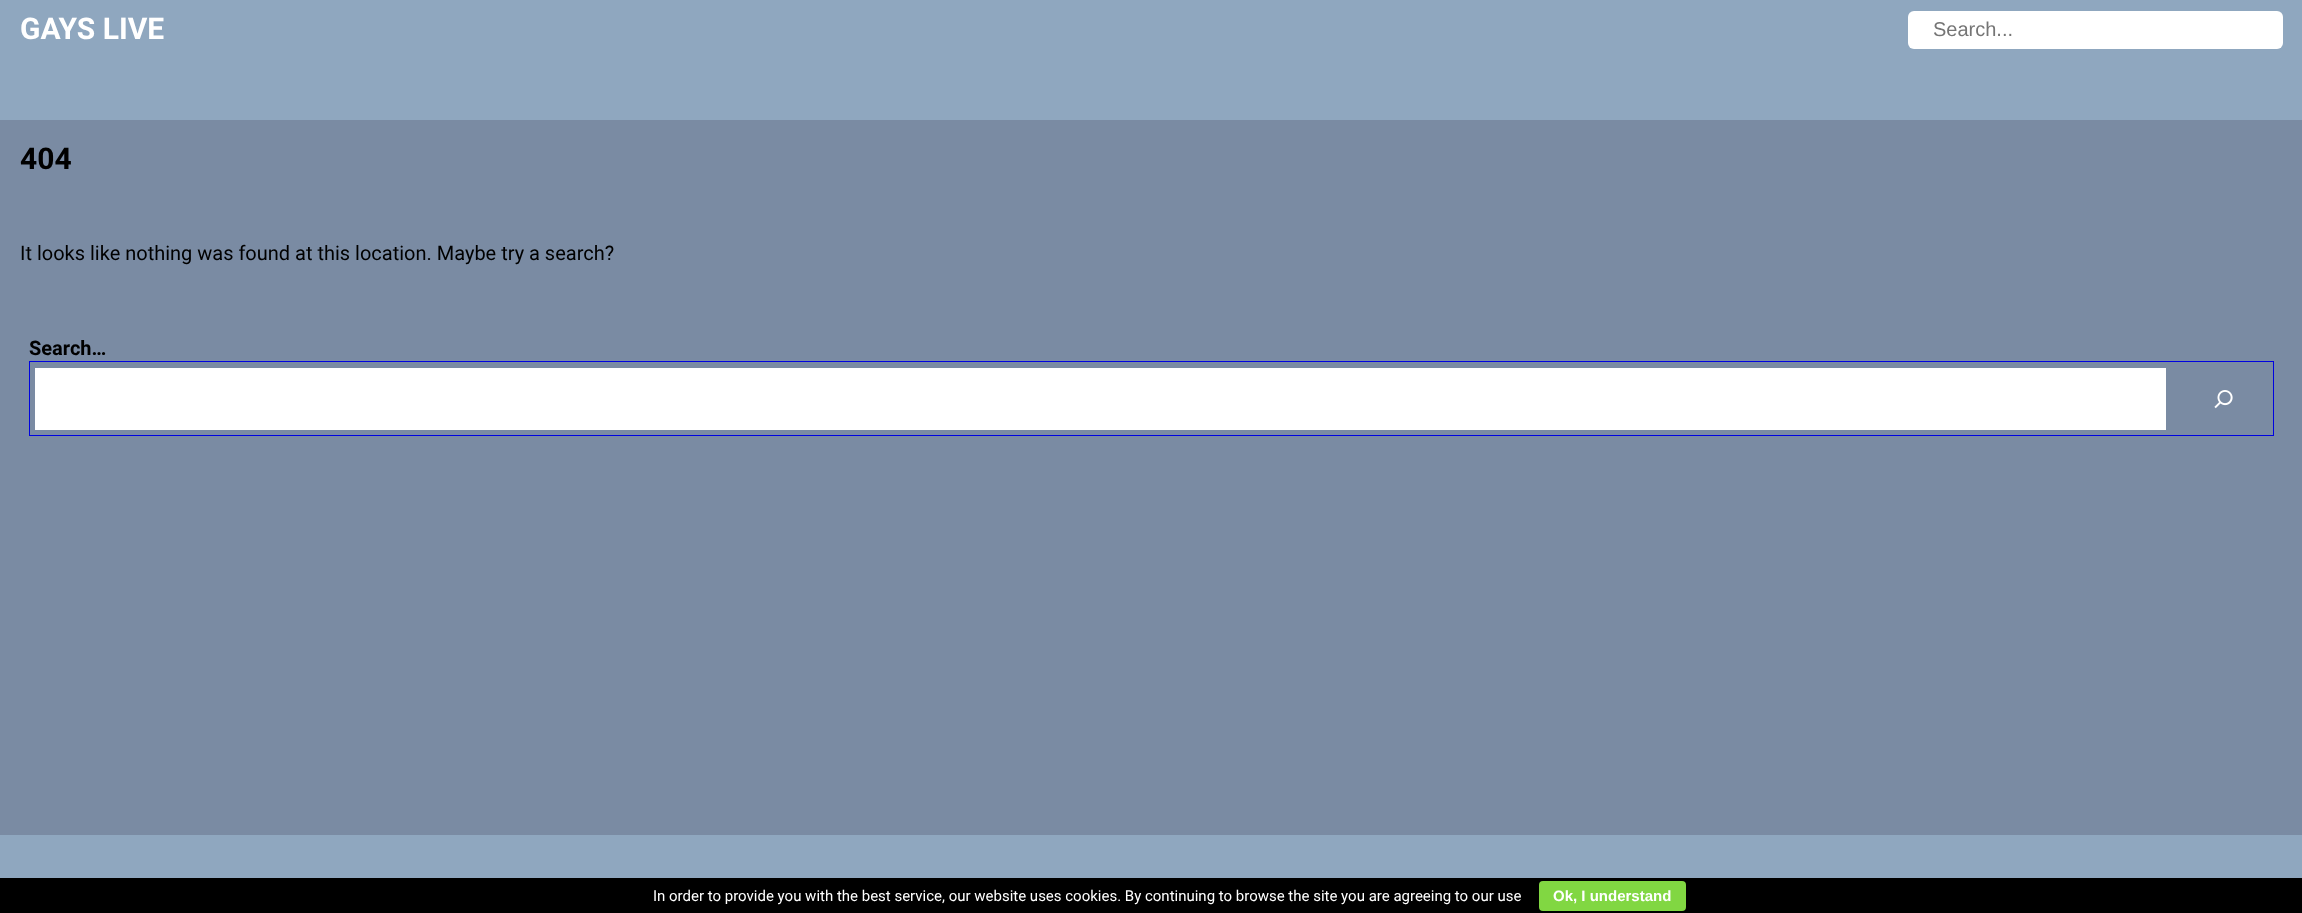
<svg xmlns="http://www.w3.org/2000/svg" width="2302" height="913">
	<rect width="100%" height="100%" fill="#8FA7BF" />
	<text x="20" y="39" font-family="Roboto" font-size="30" font-weight="700" fill="#FFFFFF">GAYS LIVE</text>
	<rect x="1908" y="11" width="375" height="38" rx="6" fill="#FFFFFF" />
	<text x="1933" y="36" font-family="Liberation Sans" font-size="20" fill="#757575">Search...</text>
	<rect x="0" y="120" width="2302" height="715" fill="#7A8BA3" />
	<text x="20" y="169" font-family="Roboto" font-size="30" font-weight="700" fill="#000000">404</text>
	<text x="20" y="260" font-family="Roboto" font-size="20" fill="#000000">It looks like nothing was found at this location. Maybe try a search?</text>
	<text x="29" y="355" font-family="Roboto" font-size="20" font-weight="700" fill="#000000">Search…</text>
	<rect x="29.5" y="361.5" width="2244" height="74" fill="none" stroke="#0003E0" />
	<rect x="35" y="368" width="2131" height="62" fill="#FFFFFF" />
	<image x="2214" y="390" width="19" height="19" href="assets/img1.png" />
	<rect x="0" y="878" width="2302" height="35" fill="#000000" />
	<text x="653" y="901" font-family="Roboto" font-size="15" fill="#FFFFFF">In order to provide you with the best service, our website uses cookies. By continuing to browse the site you are agreeing to our use</text>
	<rect x="1539" y="881" width="147" height="30" rx="4" fill="#81D742" />
	<text x="1553" y="901" font-family="Liberation Sans" font-size="15" font-weight="700" fill="#FFFFFF">Ok, I understand</text>
</svg>
